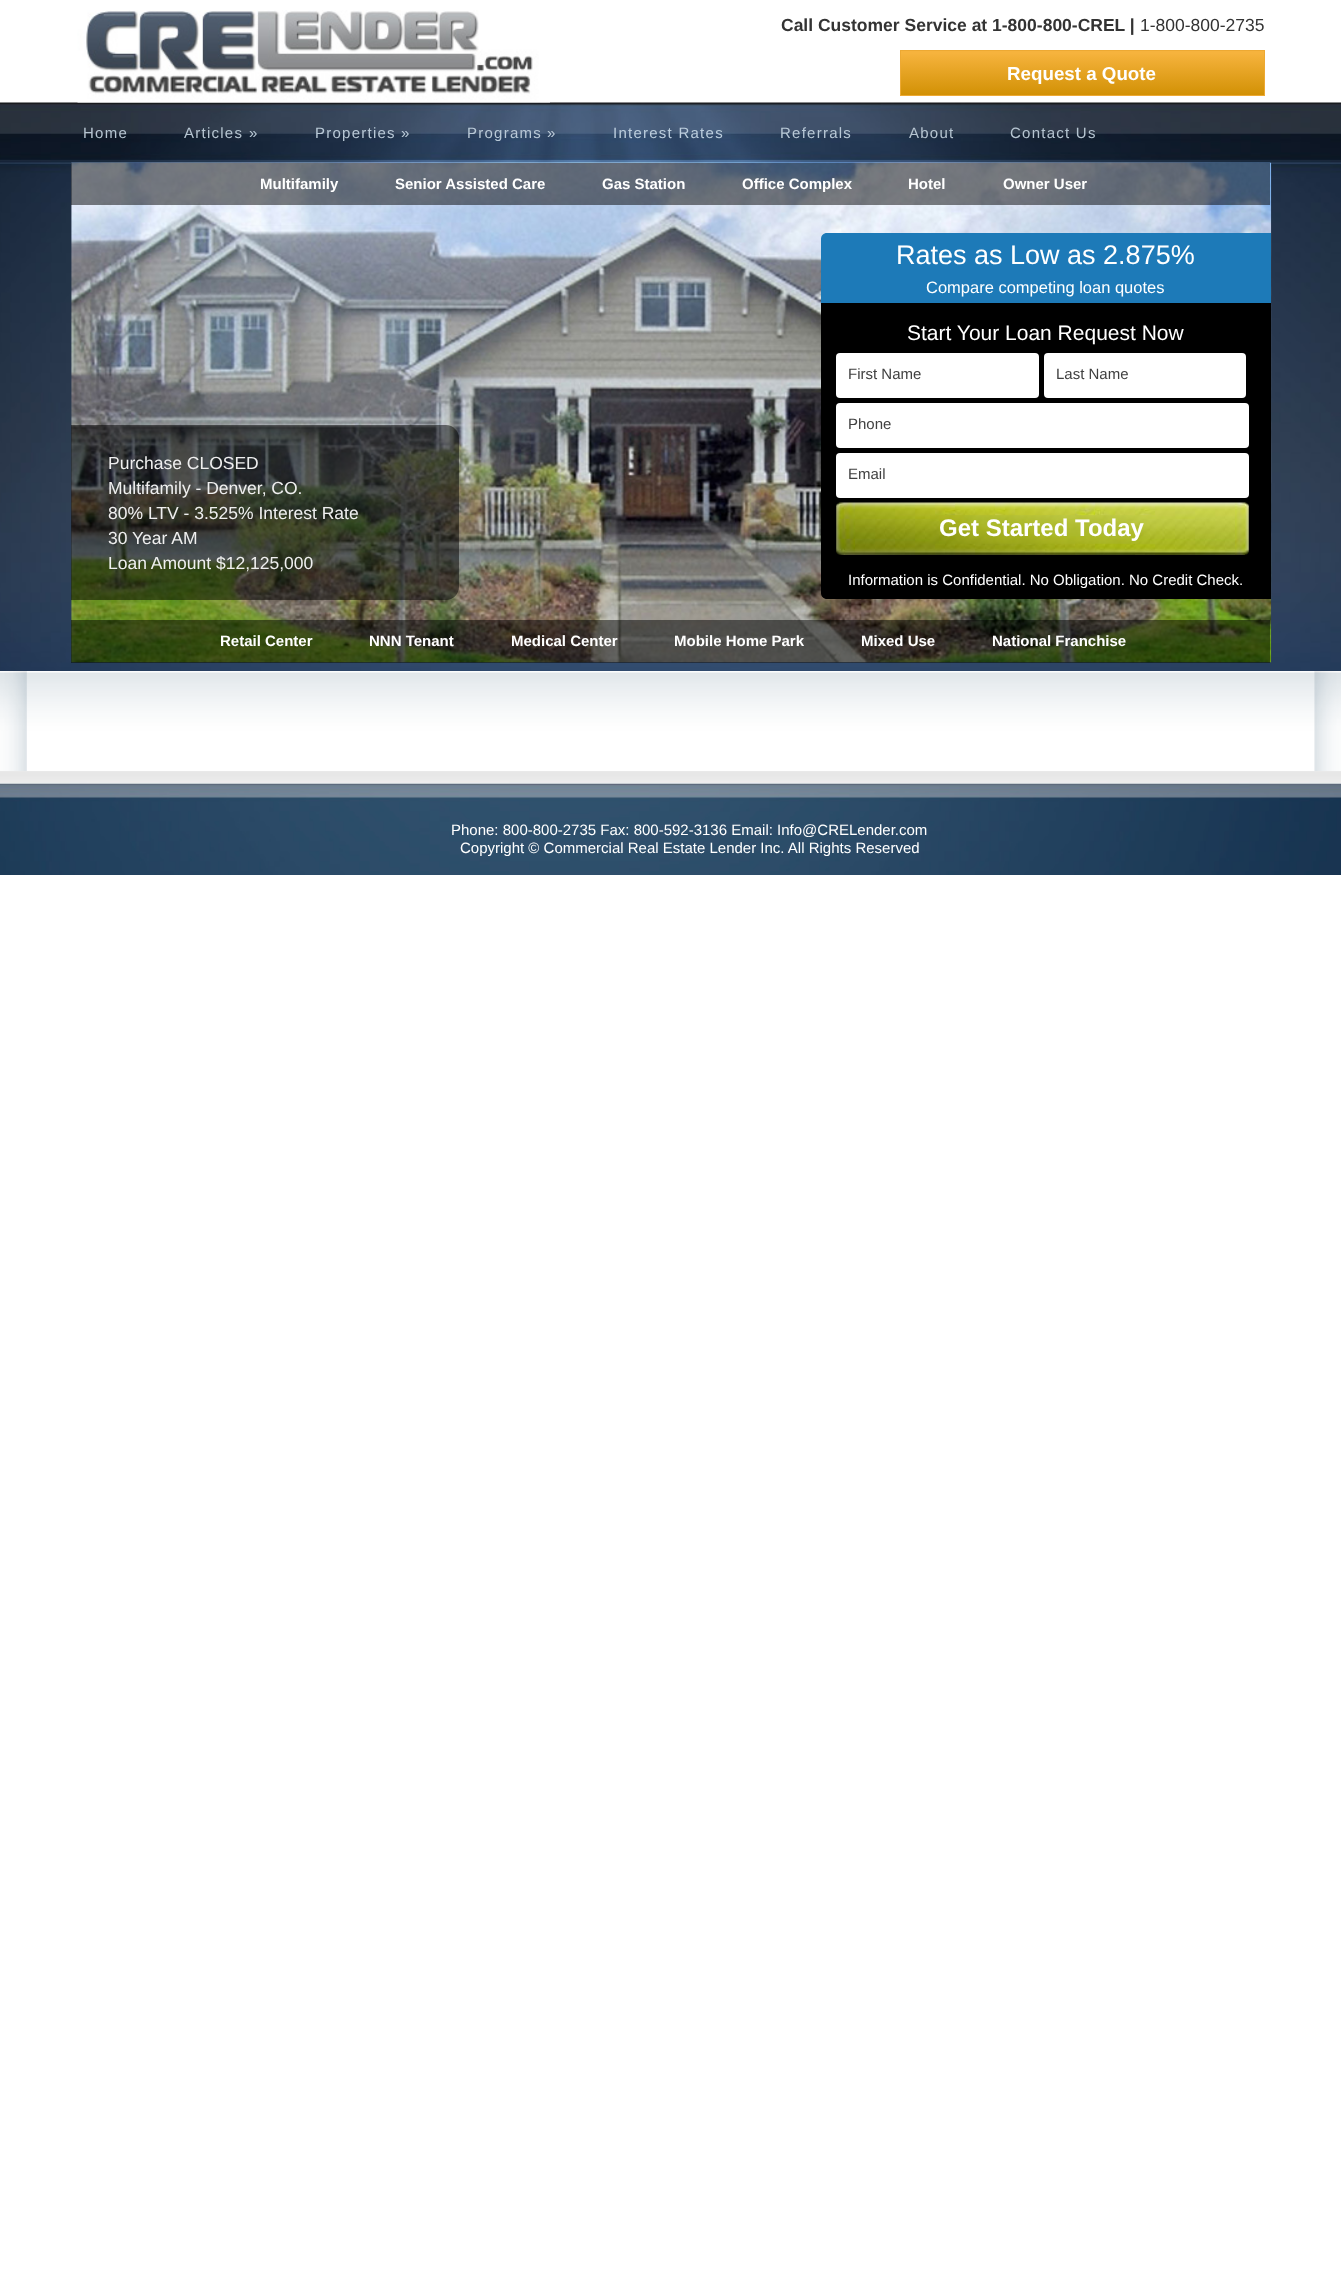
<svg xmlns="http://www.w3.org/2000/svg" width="1341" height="2278">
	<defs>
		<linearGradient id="g1" gradientUnits="userSpaceOnUse" x1="901" y1="51" x2="901" y2="95"><stop offset="0.05" stop-color="#F6B33D" /><stop offset="1" stop-color="#D29105" /></linearGradient>
	</defs>
	<rect width="100%" height="100%" fill="#FFFFFF" />
	<image x="0" y="102" width="1341" height="570" href="assets/img2.png" />
	<image x="77" y="10" width="473" height="93" href="assets/img1.png" />
	<text x="781" y="31" font-family="Liberation Sans" font-size="17.5" font-weight="700" fill="#333333">Call Customer Service at 1-800-800-CREL |</text>
	<text x="1140" y="31" font-family="Liberation Sans" font-size="17.5" fill="#333333">1-800-800-2735</text>
	<rect x="901" y="51" width="363" height="44" fill="url(#g1)" />
	<rect x="900.5" y="50.5" width="364" height="45" fill="none" stroke="#EDA933" />
	<text x="1007" y="80" font-family="Liberation Sans" font-size="18.75" font-weight="700" fill="#FFFFFF">Request a Quote</text>
	<g font-family="Liberation Sans" font-size="15" letter-spacing="1.25" fill="#B6C5D1">
		<text x="83" y="138">Home</text>
		<text x="184" y="138">Articles</text>
		<text x="249" y="138">»</text>
	</g>
	<g font-family="Liberation Sans" font-size="15" letter-spacing="1.25" fill="#B9C9D7">
		<text x="315" y="138">Properties</text>
		<text x="401" y="138">»</text>
		<text x="467" y="138">Programs</text>
		<text x="547" y="138">»</text>
	</g>
	<text x="613" y="138" font-family="Liberation Sans" font-size="15" letter-spacing="1.25" fill="#BCCEDE">Interest Rates</text>
	<text x="780" y="138" font-family="Liberation Sans" font-size="15" letter-spacing="1.25" fill="#B9C9D7">Referrals</text>
	<g font-family="Liberation Sans" font-size="15" letter-spacing="1.25" fill="#B6C5D1">
		<text x="909" y="138">About</text>
		<text x="1010" y="138">Contact Us</text>
	</g>
	<image x="71" y="162" width="1201" height="501" href="assets/img3.png" />
	<rect x="71" y="163" width="1199" height="42" fill="#000000" fill-opacity="0.5" />
	<g font-family="Liberation Sans" font-size="15" font-weight="700" fill="#FFFFFF">
		<text x="260" y="189">Multifamily</text>
		<text x="395" y="189">Senior Assisted Care</text>
		<text x="602" y="189">Gas Station</text>
		<text x="742" y="189">Office Complex</text>
		<text x="908" y="189">Hotel</text>
		<text x="1003" y="189">Owner User</text>
	</g>
	<rect x="71" y="620" width="1199" height="43" fill="#000000" fill-opacity="0.5" />
	<g font-family="Liberation Sans" font-size="15" font-weight="700" fill="#FFFFFF">
		<text x="220" y="646">Retail Center</text>
		<text x="369" y="646">NNN Tenant</text>
		<text x="511" y="646">Medical Center</text>
		<text x="674" y="646">Mobile Home Park</text>
		<text x="861" y="646">Mixed Use</text>
		<text x="992" y="646">National Franchise</text>
	</g>
	<path d="M71 425H446C453 425 459 431 459 438V587C459 594 453 600 446 600H71Z" fill="#000000" fill-opacity="0.5" />
	<g font-family="Liberation Sans" font-size="17.5" fill="#EFEFEF">
		<text x="108" y="469">Purchase CLOSED</text>
		<text x="108" y="494">Multifamily - Denver, CO.</text>
		<text x="108" y="519">80% LTV - 3.525% Interest Rate</text>
		<text x="108" y="544">30 Year AM</text>
		<text x="108" y="569">Loan Amount $12,125,000</text>
	</g>
	<path d="M827 233H1271V278H821V239C821 235.5 823.5 233 827 233Z" fill="#1D7AB8" />
	<text x="896" y="264" font-family="Liberation Sans" font-size="27" fill="#FFFFFF">Rates as Low as 2.875%</text>
	<rect x="821" y="278" width="450" height="25" fill="#1D7AB8" />
	<text x="926" y="293" font-family="Liberation Sans" font-size="16.5" fill="#FFFFFF">Compare competing loan quotes</text>
	<rect x="821" y="303" width="450" height="265" fill="#000000" />
	<text x="907" y="340" font-family="Liberation Sans" font-size="21" fill="#FFFFFF">Start Your Loan Request Now</text>
	<rect x="836" y="353" width="203" height="45" rx="4" fill="#FFFFFF" />
	<text x="848" y="379" font-family="Liberation Sans" font-size="15" fill="#404040">First Name</text>
	<rect x="1044" y="353" width="202" height="45" rx="4" fill="#FFFFFF" />
	<text x="1056" y="379" font-family="Liberation Sans" font-size="15" fill="#404040">Last Name</text>
	<rect x="836" y="403" width="413" height="45" rx="4" fill="#FFFFFF" />
	<text x="848" y="429" font-family="Liberation Sans" font-size="15" fill="#404040">Phone</text>
	<rect x="836" y="453" width="413" height="45" rx="4" fill="#FFFFFF" />
	<text x="848" y="479" font-family="Liberation Sans" font-size="15" fill="#404040">Email</text>
	<image x="836" y="502" width="413" height="53" href="assets/img4.png" />
	<text x="939" y="536" font-family="Liberation Sans" font-size="24" font-weight="700" fill="#FFFFFF">Get Started Today</text>
	<path d="M821 568H1271V599H827C823.5 599 821 596.5 821 593Z" fill="#000000" />
	<text x="848" y="585" font-family="Liberation Sans" font-size="15" fill="#FFFFFF">Information is Confidential. No Obligation. No Credit Check.</text>
	<image x="0" y="671" width="1341" height="1" href="assets/img5.png" />
	<image x="0" y="671" width="1341" height="101" href="assets/img6.png" />
	<image x="0" y="771" width="1341" height="1" href="assets/img7.png" />
	<image x="0" y="771" width="1341" height="104" href="assets/img8.png" />
	<g font-family="Liberation Sans" font-size="15" fill="#FFFFFF">
		<text x="451" y="835">Phone: 800-800-2735 Fax: 800-592-3136 Email: Info@CRELender.com</text>
		<text x="460" y="853">Copyright © Commercial Real Estate Lender Inc. All Rights Reserved</text>
	</g>
</svg>
